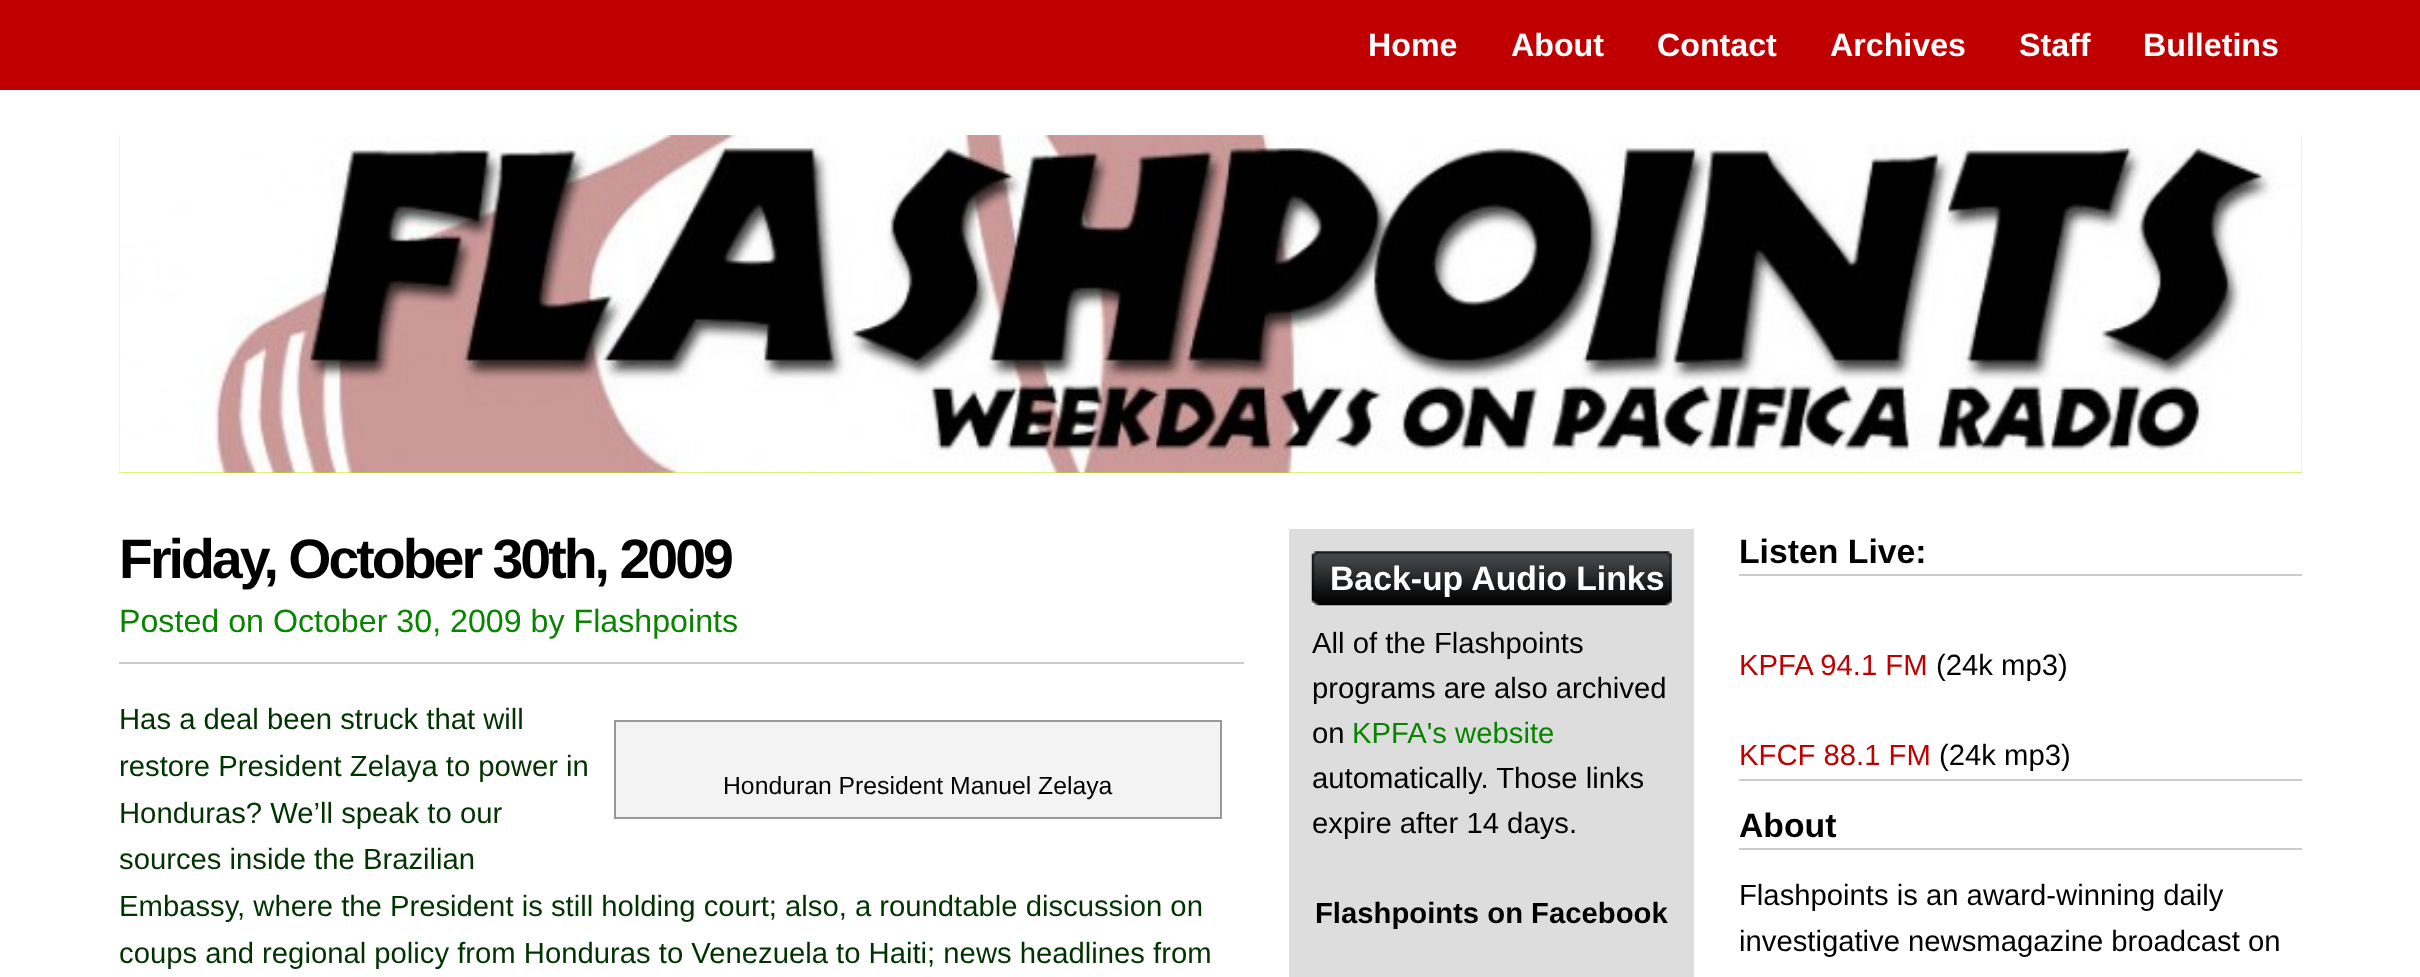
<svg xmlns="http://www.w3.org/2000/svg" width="2420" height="977">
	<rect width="100%" height="100%" fill="#FFFFFF" />
	<rect x="0" y="0" width="2420" height="90" fill="#C00000" />
	<g font-family="Liberation Sans" font-size="32.2" font-weight="700" fill="#FFFFFF">
		<text x="1368" y="56">Home</text>
		<text x="1511" y="56">About</text>
		<text x="1657" y="56">Contact</text>
		<text x="1830" y="56">Archives</text>
		<text x="2019" y="56">Staff</text>
		<text x="2143" y="56">Bulletins</text>
	</g>
	<rect x="119" y="135" width="2183" height="338" fill="#BDE701" />
	<image x="119" y="135" width="2183" height="338" href="assets/img1.png" />
	<text x="119" y="578" font-family="Liberation Sans" font-size="55.5" font-weight="700" letter-spacing="-3" fill="#000000">Friday, October 30th, 2009</text>
	<rect x="119" y="662" width="1125" height="2" fill="#CCCCCC" />
	<text x="119" y="632" font-family="Liberation Sans" font-size="32.2" fill="#098400">Posted on October 30, 2009 by Flashpoints</text>
	<g font-family="Liberation Sans" font-size="29.25" fill="#003300">
		<text x="119" y="729">Has a deal been struck that will</text>
		<text x="119" y="776">restore President Zelaya to power in</text>
		<text x="119" y="823">Honduras? We’ll speak to our</text>
		<text x="119" y="869">sources inside the Brazilian</text>
		<text x="119" y="916">Embassy, where the President is still holding court; also, a roundtable discussion on</text>
		<text x="119" y="963">coups and regional policy from Honduras to Venezuela to Haiti; news headlines from</text>
	</g>
	<rect x="615" y="721" width="606" height="97" fill="#F3F3F3" stroke="#999999" stroke-width="2" />
	<text x="723" y="794" font-family="Liberation Sans" font-size="24.75" fill="#000000">Honduran President Manuel Zelaya</text>
	<rect x="1289" y="529" width="405" height="448" fill="#DDDDDD" />
	<image x="1311" y="551" width="361" height="55" href="assets/img2.png" />
	<text x="1330" y="590" font-family="Liberation Sans" font-size="33.75" font-weight="700" fill="#FFFFFF">Back-up Audio Links</text>
	<g font-family="Liberation Sans" font-size="29.25" fill="#000000">
		<text x="1312" y="653">All of the Flashpoints</text>
		<text x="1312" y="698">programs are also archived</text>
		<text x="1312" y="743">on</text>
	</g>
	<text x="1352" y="743" font-family="Liberation Sans" font-size="29.25" fill="#098400">KPFA's website</text>
	<g font-family="Liberation Sans" font-size="29.25" fill="#000000">
		<text x="1312" y="788">automatically. Those links</text>
		<text x="1312" y="833">expire after 14 days.</text>
	</g>
	<text x="1315" y="923" font-family="Liberation Sans" font-size="29.25" font-weight="700" fill="#000000">Flashpoints on Facebook</text>
	<rect x="1739" y="574" width="563" height="2" fill="#CCCCCC" />
	<text x="1739" y="563" font-family="Liberation Sans" font-size="33.75" font-weight="700" fill="#000000">Listen Live:</text>
	<text x="1739" y="675" font-family="Liberation Sans" font-size="29.25" fill="#C00000">KPFA 94.1 FM</text>
	<text x="1936" y="675" font-family="Liberation Sans" font-size="29.25" fill="#000000">(24k mp3)</text>
	<text x="1739" y="765" font-family="Liberation Sans" font-size="29.25" fill="#C00000">KFCF 88.1 FM</text>
	<text x="1939" y="765" font-family="Liberation Sans" font-size="29.25" fill="#000000">(24k mp3)</text>
	<rect x="1739" y="779" width="563" height="2" fill="#CCCCCC" />
	<rect x="1739" y="848" width="563" height="2" fill="#CCCCCC" />
	<text x="1739" y="837" font-family="Liberation Sans" font-size="33.75" font-weight="700" fill="#000000">About</text>
	<g font-family="Liberation Sans" font-size="29.25" fill="#000000">
		<text x="1739" y="905">Flashpoints is an award-winning daily</text>
		<text x="1739" y="951">investigative newsmagazine broadcast on</text>
	</g>
</svg>
